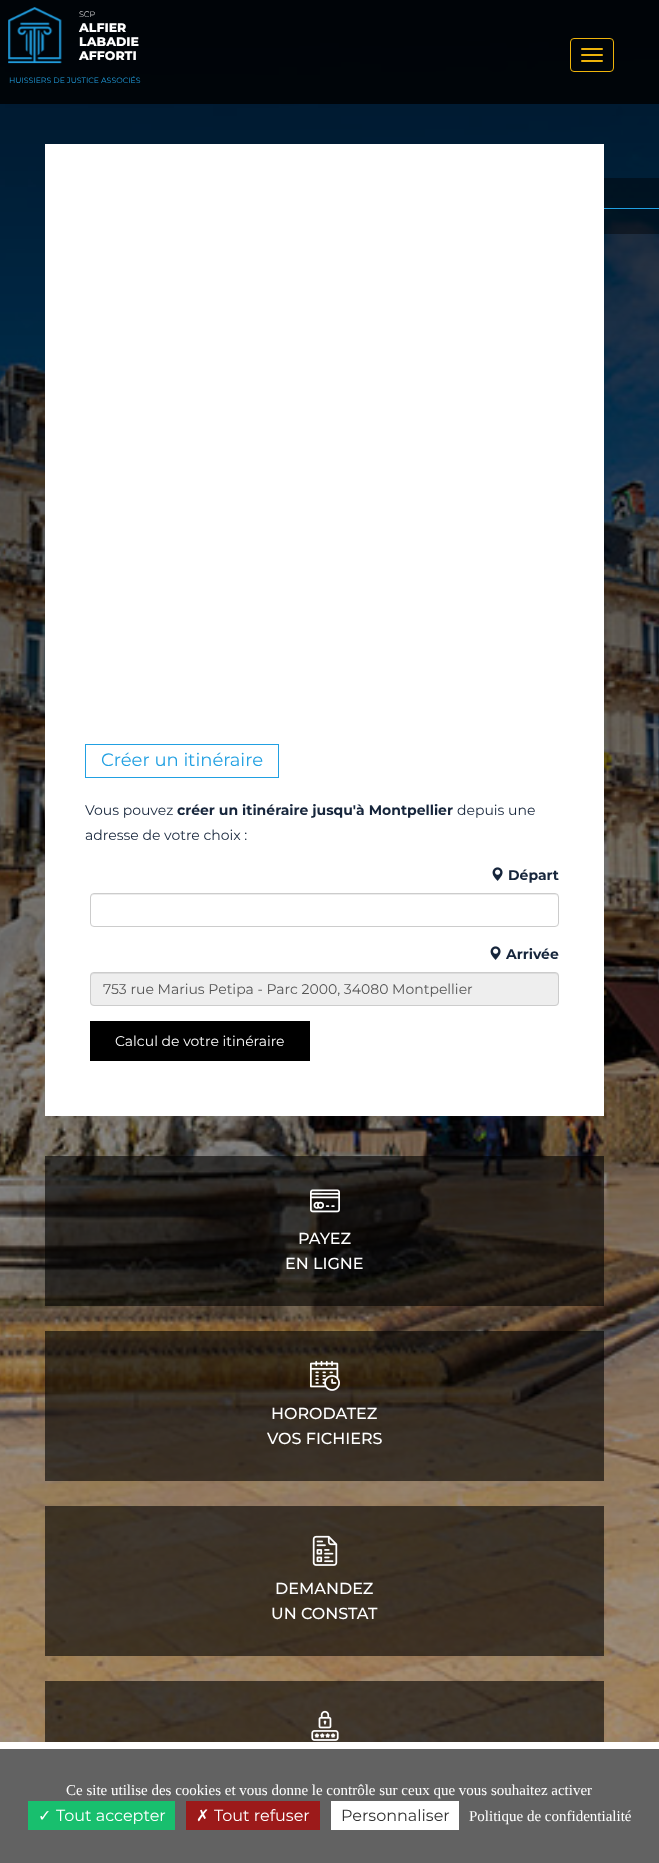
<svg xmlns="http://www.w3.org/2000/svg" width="659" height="1863">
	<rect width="100%" height="100%" fill="#FFFFFF" />
	<image x="0" y="0" width="659" height="1742" href="assets/img1.png" />
	<rect x="0" y="0" width="659" height="104" fill="#000000" fill-opacity="0.8" />
	<image x="8" y="7" width="54" height="57" href="assets/img2.png" />
	<text x="79" y="17" font-family="Montserrat" font-size="8" font-weight="300" fill="#FFFFFF">SCP</text>
	<g font-family="Montserrat" font-size="12.5" font-weight="800" fill="#FFFFFF">
		<text x="79" y="32">ALFIER</text>
		<text x="79" y="46">LABADIE</text>
		<text x="79" y="60">AFFORTI</text>
	</g>
	<text x="9" y="83" font-family="Montserrat" font-size="7.75" fill="#21A0E2">HUISSIERS DE JUSTICE ASSOCIÉS</text>
	<rect x="570.5" y="38.5" width="43" height="33" rx="3.5" fill="none" stroke="#EEB40B" />
	<rect x="581" y="48" width="22" height="2" rx="1" fill="#EEB40B" />
	<rect x="581" y="54" width="22" height="2" rx="1" fill="#EEB40B" />
	<rect x="581" y="60" width="22" height="2" rx="1" fill="#EEB40B" />
	<rect x="604" y="178" width="55" height="56" fill="#000000" fill-opacity="0.4" />
	<rect x="604" y="208" width="55" height="1" fill="#21A0E2" />
	<rect x="45" y="144" width="559" height="972" fill="#FFFFFF" />
	<rect x="85.5" y="744.5" width="193" height="33" fill="none" stroke="#21A0E2" />
	<text x="101" y="766" font-family="Montserrat" font-size="18" fill="#21A0E2">Créer un itinéraire</text>
	<text x="85" y="815" font-family="Montserrat" font-size="14" fill="#16253B">Vous pouvez</text>
	<text x="177" y="815" font-family="Montserrat" font-size="14" font-weight="700" fill="#16253B">créer un itinéraire jusqu'à Montpellier</text>
	<g font-family="Montserrat" font-size="14" fill="#16253B">
		<text x="457" y="815">depuis une</text>
		<text x="85" y="840">adresse de votre choix :</text>
	</g>
	<image x="492" y="867" width="11" height="14" href="assets/img3.png" />
	<text x="508" y="880" font-family="Montserrat" font-size="14" font-weight="700" fill="#16253B">Départ</text>
	<path d="M94 895H555C557 895 558 896 558 898V897C558 895 557 894 555 894H94C92 894 91 895 91 897V898C91 896 92 895 94 895Z" fill="#ECECEC" />
	<rect x="90.5" y="893.5" width="468" height="33" rx="3.5" fill="none" stroke="#CCCCCC" />
	<image x="490" y="946" width="11" height="14" href="assets/img3.png" />
	<text x="506" y="959" font-family="Montserrat" font-size="14" font-weight="700" fill="#16253B">Arrivée</text>
	<rect x="90" y="972" width="469" height="34" rx="4" fill="#EEEEEE" />
	<path d="M94 974H555C557 974 558 975 558 977V976C558 974 557 973 555 973H94C92 973 91 974 91 976V977C91 975 92 974 94 974Z" fill="#DCDCDC" />
	<rect x="90.5" y="972.5" width="468" height="33" rx="3.5" fill="none" stroke="#CCCCCC" />
	<text x="103" y="994" font-family="Montserrat" font-size="14" fill="#555555">753 rue Marius Petipa - Parc 2000, 34080 Montpellier</text>
	<rect x="90" y="1021" width="220" height="40" fill="#000000" />
	<text x="115" y="1046" font-family="Montserrat" font-size="14" fill="#FFFFFF">Calcul de votre itinéraire</text>
	<rect x="45" y="1156" width="559" height="150" fill="#000000" fill-opacity="0.6" />
	<image x="310" y="1189" width="30" height="24" href="assets/img4.png" />
	<g font-family="Montserrat" font-size="16" font-weight="500" fill="#FFFFFF">
		<text x="298" y="1244">PAYEZ</text>
		<text x="285" y="1269">EN LIGNE</text>
	</g>
	<rect x="45" y="1331" width="559" height="150" fill="#000000" fill-opacity="0.6" />
	<image x="310" y="1360" width="30" height="31" href="assets/img5.png" />
	<g font-family="Montserrat" font-size="16" font-weight="500" fill="#FFFFFF">
		<text x="271" y="1419">HORODATEZ</text>
		<text x="267" y="1444">VOS FICHIERS</text>
	</g>
	<rect x="45" y="1506" width="559" height="150" fill="#000000" fill-opacity="0.6" />
	<image x="312" y="1535" width="26" height="31" href="assets/img6.png" />
	<g font-family="Montserrat" font-size="16" font-weight="500" fill="#FFFFFF">
		<text x="275" y="1594">DEMANDEZ</text>
		<text x="271" y="1619">UN CONSTAT</text>
	</g>
	<rect x="45" y="1681" width="559" height="61" fill="#000000" fill-opacity="0.6" />
	<image x="311" y="1710" width="28" height="31" href="assets/img7.png" />
	<rect x="0" y="1749" width="659" height="114" fill="#626262" />
	<text x="66" y="1795" font-family="Liberation Serif" font-size="15" fill="#FFFFFF">Ce site utilise des cookies et vous donne le contrôle sur ceux que vous souhaitez activer</text>
	<rect x="28" y="1801" width="147" height="29" fill="#18BF6E" />
	<text x="38" y="1821" font-family="DejaVu Sans" font-size="16" fill="#FFFFFF">✓</text>
	<text x="56" y="1821" font-family="Montserrat" font-size="16" fill="#FFFFFF">Tout accepter</text>
	<rect x="186" y="1801" width="134" height="29" fill="#9C1A1A" />
	<text x="196" y="1821" font-family="DejaVu Sans" font-size="16" fill="#FFFFFF">✗</text>
	<text x="214" y="1821" font-family="Montserrat" font-size="16" fill="#FFFFFF">Tout refuser</text>
	<rect x="331" y="1801" width="128" height="29" fill="#FFFFFF" />
	<text x="341" y="1821" font-family="Montserrat" font-size="16" fill="#333333">Personnaliser</text>
	<text x="469" y="1821" font-family="Liberation Serif" font-size="15" fill="#FFFFFF">Politique de confidentialité</text>
</svg>
